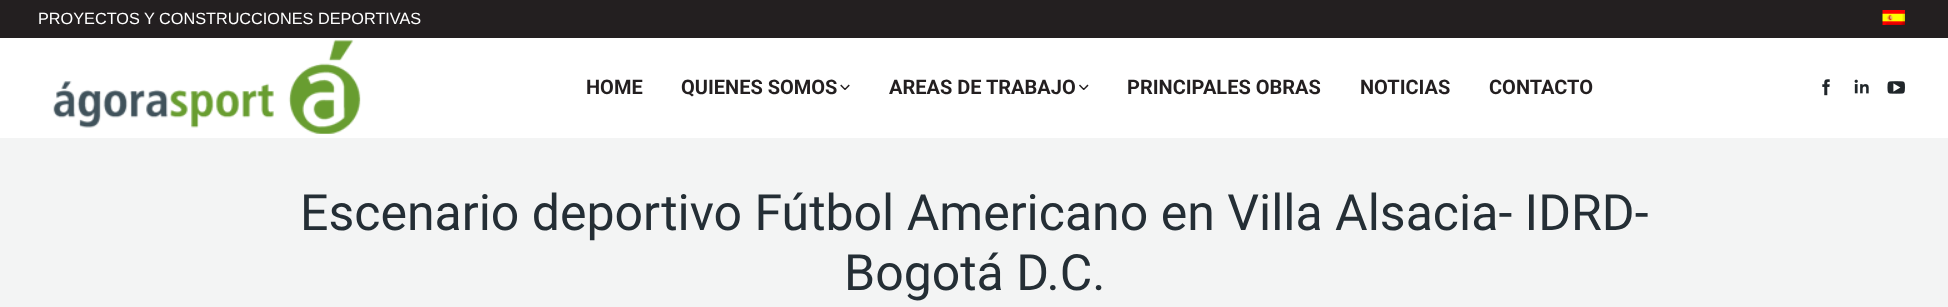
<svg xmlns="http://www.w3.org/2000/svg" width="1948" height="307">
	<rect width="100%" height="100%" fill="#F3F4F4" />
	<rect x="0" y="38" width="1948" height="100" fill="#FFFFFF" />
	<rect x="0" y="0" width="1948" height="38" fill="#231F20" />
	<text x="38" y="24" font-family="Liberation Sans" font-size="16.25" fill="#FFFFFF">PROYECTOS Y CONSTRUCCIONES DEPORTIVAS</text>
	<image x="1882" y="10" width="23" height="15" href="assets/img1.png" />
	<image x="53" y="39" width="308" height="95" href="assets/img2.png" />
	<g font-family="Roboto" font-size="20" font-weight="700" fill="#231F20">
		<text x="586" y="94">HOME</text>
		<text x="681" y="94">QUIENES SOMOS</text>
	</g>
	<image x="840" y="84" width="10" height="6" href="assets/img3.png" />
	<text x="889" y="94" font-family="Roboto" font-size="20" font-weight="700" fill="#231F20">AREAS DE TRABAJO</text>
	<image x="1079" y="84" width="10" height="6" href="assets/img4.png" />
	<g font-family="Roboto" font-size="20" font-weight="700" fill="#231F20">
		<text x="1127" y="94">PRINCIPALES OBRAS</text>
		<text x="1360" y="94">NOTICIAS</text>
		<text x="1489" y="94">CONTACTO</text>
	</g>
	<image x="1822" y="79" width="8" height="17" href="assets/img5.png" />
	<image x="1854" y="79" width="15" height="15" href="assets/img6.png" />
	<image x="1887" y="81" width="18" height="13" href="assets/img7.png" />
	<g font-family="Roboto" font-size="50" fill="#242E35">
		<text x="300" y="230">Escenario deportivo Fútbol Americano en Villa Alsacia- IDRD-</text>
		<text x="844" y="290">Bogotá D.C.</text>
	</g>
</svg>
